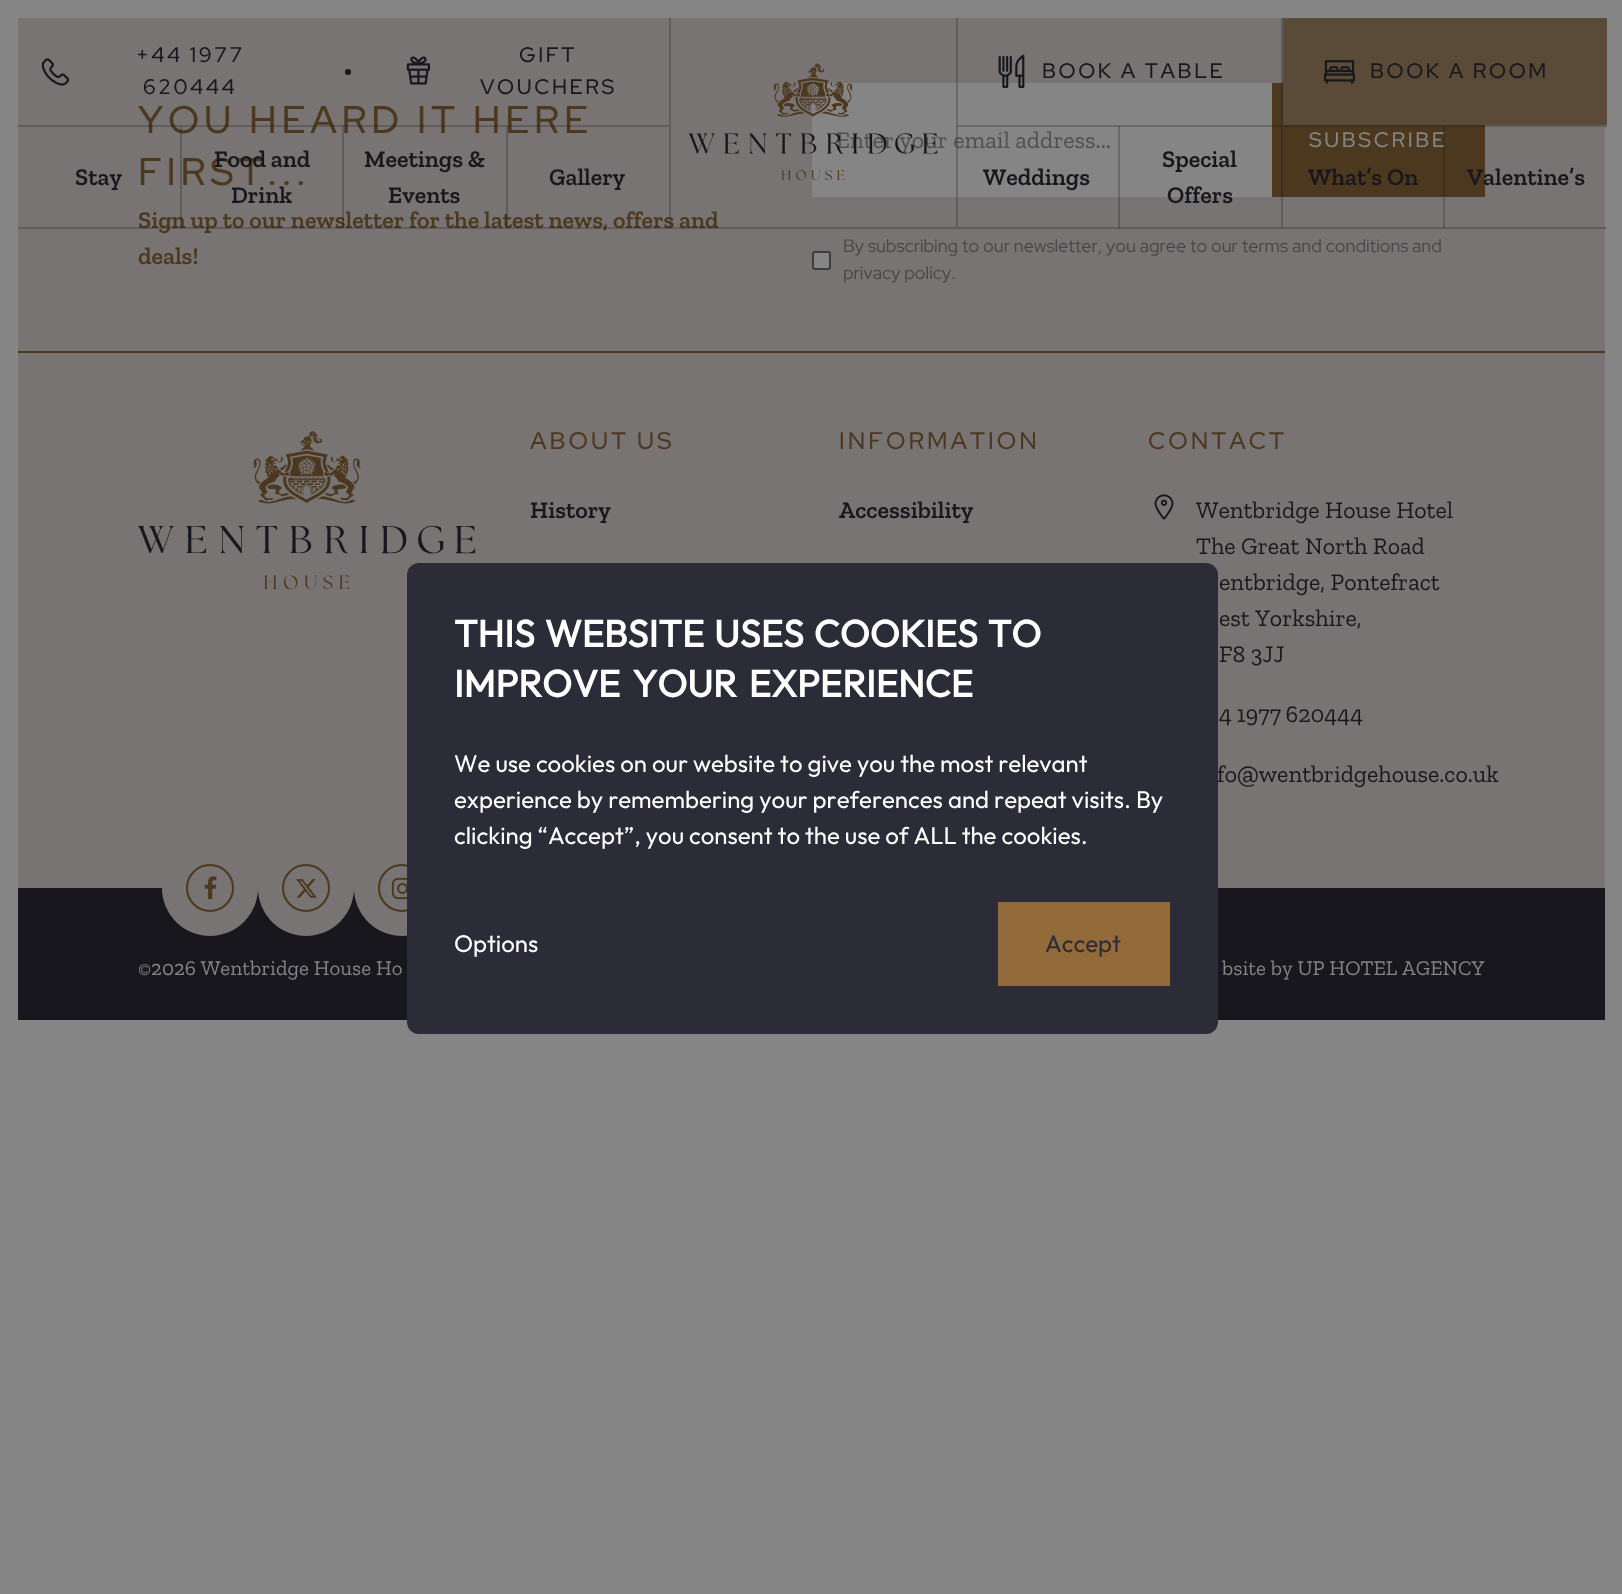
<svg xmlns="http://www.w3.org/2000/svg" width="1622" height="1594">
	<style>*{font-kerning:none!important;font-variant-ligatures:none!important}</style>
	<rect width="100%" height="100%" fill="#858585" />
	<rect x="18" y="18" width="1587" height="333" fill="#787473" />
	<text x="138" y="228" font-family="Zilla Slab" font-size="24" font-weight="600" fill="#4C381E">Sign up to our newsletter for the latest news, offers and</text>
	<rect x="18" y="227" width="1589" height="2" fill="#17171D" fill-opacity="0.25" />
	<text x="138" y="133" font-family="Red Hat Display" font-size="38.5" font-weight="500" letter-spacing="4.8" fill="#4C381E">YOU HEARD IT HERE</text>
	<rect x="18" y="125" width="651" height="2" fill="#17171D" fill-opacity="0.25" />
	<text x="136" y="62" font-family="Red Hat Display" font-size="21" font-weight="500" letter-spacing="2.6" fill="#17171D">+44 1977</text>
	<image x="41" y="58" width="29" height="28" href="assets/img1.png" />
	<text x="143" y="94" font-family="Red Hat Display" font-size="21" font-weight="500" letter-spacing="2.6" fill="#17171D">620444</text>
	<circle cx="348" cy="72" r="3" fill="#17171D" />
	<image x="406" y="56" width="24" height="29" href="assets/img2.png" />
	<g font-family="Red Hat Display" font-size="21" font-weight="500" letter-spacing="2.6" fill="#17171D">
		<text x="519" y="62">GIFT</text>
		<text x="480" y="94">VOUCHERS</text>
	</g>
	<text x="138" y="185" font-family="Red Hat Display" font-size="38.5" font-weight="500" letter-spacing="4.8" fill="#4C381E">FIRST...</text>
	<rect x="180" y="126" width="2" height="102" fill="#17171D" fill-opacity="0.25" />
	<text x="75" y="185" font-family="Zilla Slab" font-size="24" font-weight="600" fill="#17171D">Stay</text>
	<rect x="342" y="126" width="2" height="102" fill="#17171D" fill-opacity="0.25" />
	<g font-family="Zilla Slab" font-size="24" font-weight="600" fill="#17171D">
		<text x="214" y="167">Food and</text>
		<text x="231" y="203">Drink</text>
	</g>
	<rect x="506" y="126" width="2" height="102" fill="#17171D" fill-opacity="0.25" />
	<g font-family="Zilla Slab" font-size="24" font-weight="600" fill="#17171D">
		<text x="364" y="167">Meetings &amp;</text>
		<text x="388" y="203">Events</text>
		<text x="549" y="185">Gallery</text>
	</g>
	<rect x="812" y="83" width="460" height="114" fill="#858585" />
	<text x="836" y="148" font-family="Zilla Slab" font-size="24" fill="#4E4E51">Enter your email address...</text>
	<rect x="956" y="18" width="2" height="209" fill="#17171D" fill-opacity="0.25" />
	<rect x="669" y="18" width="2" height="209" fill="#17171D" fill-opacity="0.25" />
	<image x="689" y="63" width="249" height="118" href="assets/img3.png" />
	<rect x="1272" y="83" width="213" height="114" fill="#4C381E" />
	<rect x="957" y="125" width="650" height="2" fill="#17171D" fill-opacity="0.25" />
	<image x="998" y="54" width="27" height="34" href="assets/img4.png" />
	<text x="1042" y="78" font-family="Red Hat Display" font-size="21" font-weight="500" letter-spacing="2.6" fill="#17171D">BOOK A TABLE</text>
	<rect x="1283" y="18" width="324" height="107" fill="#5A4B38" />
	<image x="1323" y="60" width="33" height="24" href="assets/img5.png" />
	<text x="1370" y="78" font-family="Red Hat Display" font-size="21" font-weight="500" letter-spacing="2.6" fill="#17171D">BOOK A ROOM</text>
	<rect x="1118" y="126" width="2" height="102" fill="#17171D" fill-opacity="0.25" />
	<text x="983" y="185" font-family="Zilla Slab" font-size="24" font-weight="600" fill="#17171D">Weddings</text>
	<rect x="1281" y="126" width="2" height="102" fill="#17171D" fill-opacity="0.25" />
	<g font-family="Zilla Slab" font-size="24" font-weight="600" fill="#17171D">
		<text x="1162" y="167">Special</text>
		<text x="1167" y="203">Offers</text>
	</g>
	<text x="1309" y="147" font-family="Red Hat Display" font-size="21" font-weight="500" letter-spacing="2.6" fill="#858585">SUBSCRIBE</text>
	<rect x="1443" y="126" width="2" height="102" fill="#17171D" fill-opacity="0.25" />
	<g font-family="Zilla Slab" font-size="24" font-weight="600" fill="#17171D">
		<text x="1308" y="185">What’s On</text>
		<text x="1467" y="185">Valentine’s</text>
	</g>
	<rect x="1281" y="18" width="2" height="65" fill="#605D5E" />
	<text x="138" y="264" font-family="Zilla Slab" font-size="24" font-weight="600" fill="#4C381E">deals!</text>
	<rect x="1281" y="83" width="2" height="42" fill="#3F2F1E" />
	<rect x="813" y="252" width="17" height="17" rx="2" fill="#858585" stroke="#3D3D3D" stroke-width="2" />
	<g font-family="Red Hat Display" font-size="18" fill="#484648">
		<text x="843" y="252">By subscribing to our newsletter, you agree to our terms and conditions</text>
		<text x="1412" y="252">and</text>
		<text x="843" y="279">privacy policy.</text>
	</g>
	<rect x="18" y="353" width="1587" height="535" fill="#787473" />
	<rect x="18" y="351" width="1587" height="2" fill="#4C381E" />
	<image x="138" y="431" width="338" height="159" href="assets/img6.png" />
	<rect x="18" y="888" width="1587" height="132" fill="#17171D" />
	<circle cx="210" cy="888" r="48" fill="#787473" />
	<circle cx="210" cy="888" r="23" fill="none" stroke="#4C381E" stroke-width="2" />
	<image x="204" y="876" width="13" height="24" href="assets/img7.png" />
	<circle cx="306" cy="888" r="48" fill="#787473" />
	<circle cx="306" cy="888" r="23" fill="none" stroke="#4C381E" stroke-width="2" />
	<image x="296" y="879" width="21" height="19" href="assets/img8.png" />
	<circle cx="402" cy="888" r="48" fill="#787473" />
	<circle cx="402" cy="888" r="23" fill="none" stroke="#4C381E" stroke-width="2" />
	<image x="391" y="877" width="16" height="23" href="assets/img9.png" />
	<text x="530" y="449" font-family="Red Hat Display" font-size="24" font-weight="500" letter-spacing="3" fill="#4C381E">ABOUT US</text>
	<text x="530" y="518" font-family="Zilla Slab" font-size="24" font-weight="600" fill="#17171D">History</text>
	<text x="839" y="449" font-family="Red Hat Display" font-size="24" font-weight="500" letter-spacing="3" fill="#4C381E">INFORMATION</text>
	<text x="839" y="518" font-family="Zilla Slab" font-size="24" font-weight="600" fill="#17171D">Accessibility</text>
	<text x="1148" y="449" font-family="Red Hat Display" font-size="24" font-weight="500" letter-spacing="3" fill="#4C381E">CONTACT</text>
	<image x="1154" y="494" width="20" height="26" href="assets/img10.png" />
	<g font-family="Zilla Slab" font-size="24" fill="#17171D">
		<text x="1196" y="518">Wentbridge House Hotel</text>
		<text x="1196" y="554">The Great North Road</text>
		<text x="1219" y="590">entbridge, Pontefract</text>
		<text x="1219" y="626">est Yorkshire,</text>
		<text x="1219" y="662">F8 3JJ</text>
		<text x="1219" y="722" word-spacing="-1">4 1977 620444</text>
		<text x="1217" y="782">fo@wentbridgehouse.co.uk</text>
	</g>
	<rect x="407" y="563" width="811" height="471" rx="12" fill="#2C2C38" />
	<g font-family="Outfit" font-size="37.75" font-weight="700" fill="#FFFFFF">
		<text x="454" y="647" word-spacing="2">THIS WEBSITE USES COOKIES TO</text>
		<text x="454" y="697" word-spacing="4">IMPROVE YOUR EXPERIENCE</text>
	</g>
	<g font-family="Outfit" font-size="24" fill="#FFFFFF">
		<text x="454" y="772">We use cookies on our website to give you the most relevant</text>
		<text x="454" y="808">experience by remembering your preferences</text>
		<text x="948" y="808">and repeat visits. By</text>
		<text x="454" y="844">clicking “Accept”, you</text>
		<text x="689" y="844">consent to the use of ALL the cookies.</text>
		<text x="454" y="952">Options</text>
	</g>
	<rect x="998" y="902" width="172" height="84" fill="#936B3A" />
	<text x="1045" y="952" font-family="Outfit" font-size="24" fill="#2C2C38">Accept</text>
	<text x="138" y="975" font-family="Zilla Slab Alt" font-size="21" fill="#858585">©2026 Wentbridge House Ho</text>
	<text x="1222" y="975" font-family="Zilla Slab" font-size="21" fill="#858585">bsite by UP HOTEL AGENCY</text>
</svg>
